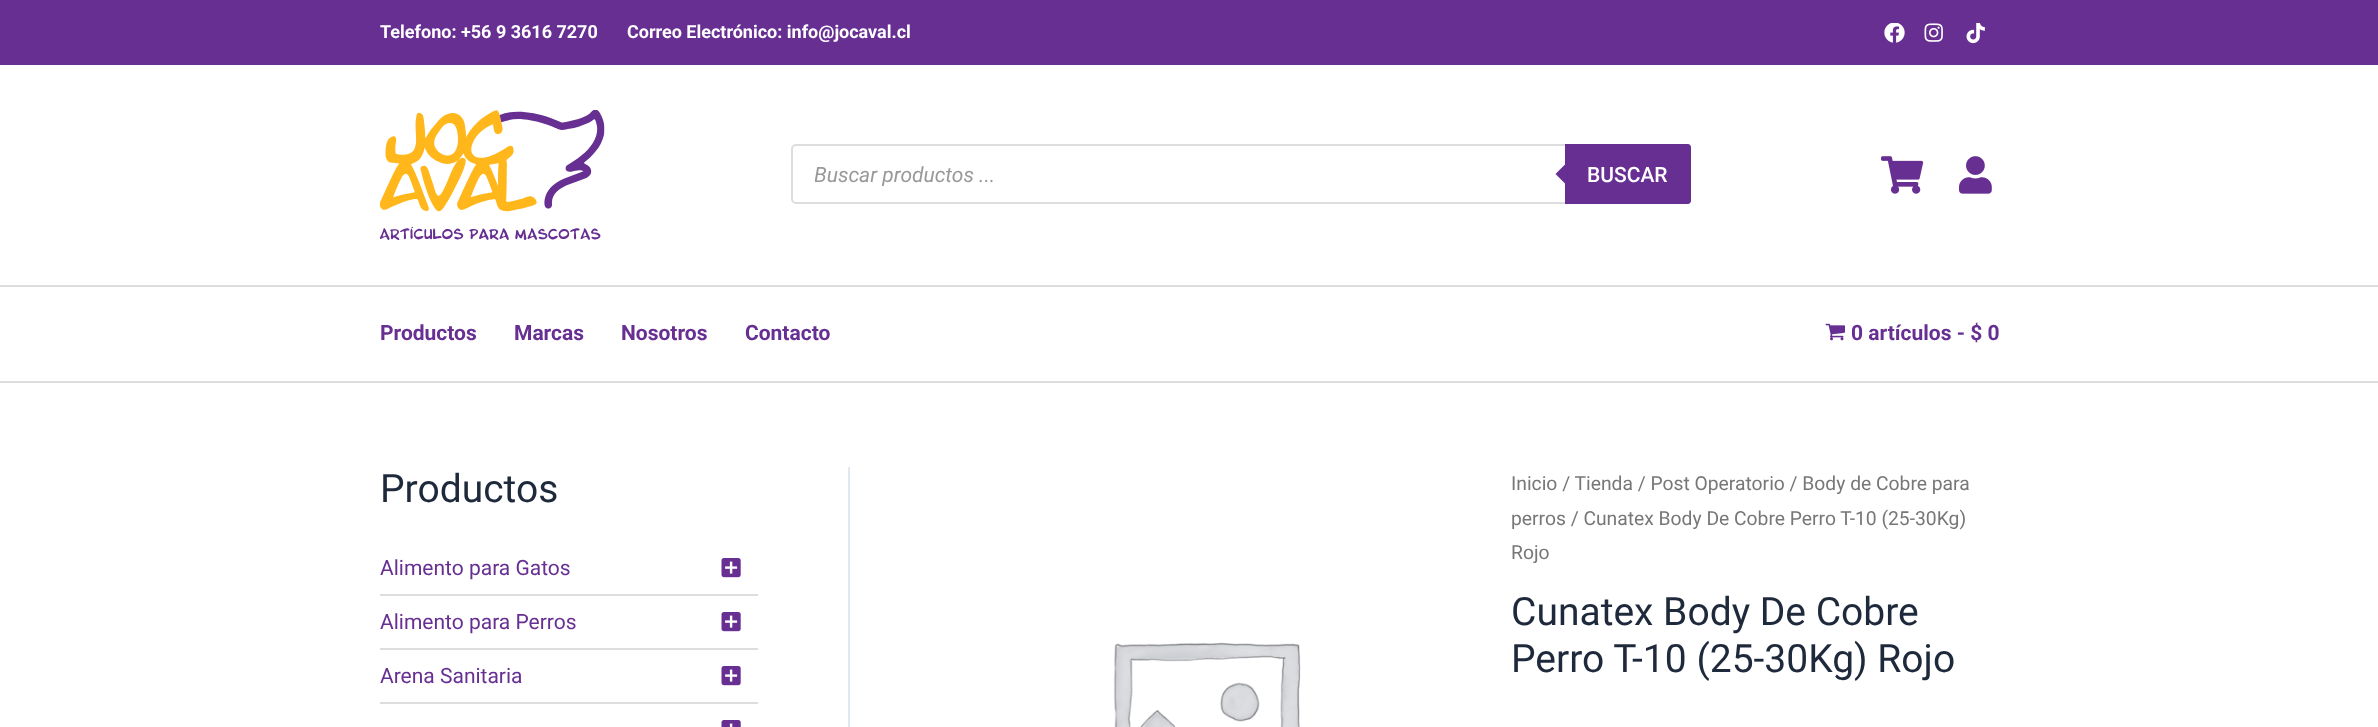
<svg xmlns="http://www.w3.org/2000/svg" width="2378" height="727">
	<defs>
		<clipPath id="clip1"><rect x="815" y="162" width="852" height="24" /></clipPath>
	</defs>
	<rect width="100%" height="100%" fill="#FFFFFF" />
	<rect x="0" y="0" width="2378" height="65" fill="#672F92" />
	<g font-family="Roboto" font-size="18" font-weight="700" fill="#FFFFFF">
		<text x="380" y="38">Telefono: +56 9 3616 7270</text>
		<text x="627" y="38">Correo Electrónico: info@jocaval.cl</text>
	</g>
	<image x="1884" y="23" width="21" height="20" href="assets/img1.png" />
	<image x="1924" y="23" width="19" height="19" href="assets/img2.png" />
	<image x="1966" y="23" width="19" height="21" href="assets/img3.png" />
	<image x="380" y="110" width="225" height="130" href="assets/img4.png" />
	<rect x="792" y="145" width="898" height="58" rx="4" fill="none" stroke="#DDDDDD" stroke-width="2" />
	<g clip-path="url(#clip1)">
		<text x="814" y="182" font-family="Roboto" font-size="21" font-style="italic" fill="#999999">Buscar productos ...</text>
	</g>
	<path d="M1565 144H1688C1689.5 144 1691 145.5 1691 147V201C1691 202.5 1689.5 204 1688 204H1565Z" fill="#672F92" />
	<path d="M1567.5 162V186L1555.5 174Z" fill="#672F92" />
	<text x="1587" y="182" font-family="Roboto" font-size="21" font-weight="500" fill="#FFFFFF">BUSCAR</text>
	<image x="1881" y="156" width="43" height="38" href="assets/img5.png" />
	<image x="1959" y="156" width="33" height="38" href="assets/img6.png" />
	<rect x="0" y="285" width="2378" height="2" fill="#DDDDDD" />
	<rect x="0" y="381" width="2378" height="2" fill="#DDDDDD" />
	<g font-family="Roboto" font-size="21" font-weight="700" fill="#672F92">
		<text x="380" y="340">Productos</text>
		<text x="514" y="340">Marcas</text>
		<text x="621" y="340">Nosotros</text>
		<text x="745" y="340">Contacto</text>
	</g>
	<image x="1825" y="323" width="20" height="18" href="assets/img7.png" />
	<text x="1851" y="340" font-family="Roboto" font-size="21" font-weight="700" fill="#672F92">0 artículos - $ 0</text>
	<rect x="848" y="467" width="2" height="260" fill="#E2E8F0" />
	<text x="380" y="502" font-family="Roboto" font-size="39" fill="#1E293B">Productos</text>
	<rect x="380" y="594" width="378" height="2" fill="#DDDDDD" />
	<text x="380" y="575" font-family="Roboto" font-size="21" fill="#672F92">Alimento para Gatos</text>
	<image x="721" y="558" width="20" height="20" href="assets/img8.png" />
	<rect x="380" y="648" width="378" height="2" fill="#DDDDDD" />
	<text x="380" y="629" font-family="Roboto" font-size="21" fill="#672F92">Alimento para Perros</text>
	<image x="721" y="612" width="20" height="20" href="assets/img8.png" />
	<rect x="380" y="702" width="378" height="2" fill="#DDDDDD" />
	<text x="380" y="683" font-family="Roboto" font-size="21" fill="#672F92">Arena Sanitaria</text>
	<image x="721" y="666" width="20" height="20" href="assets/img8.png" />
	<image x="721" y="720" width="20" height="7" href="assets/img9.png" />
	<image x="1113" y="642" width="188" height="85" href="assets/img10.png" />
	<g font-family="Roboto" font-size="19.3" fill="#777777">
		<text x="1511" y="490">Inicio / Tienda / Post Operatorio / Body de Cobre para</text>
		<text x="1511" y="525">perros / Cunatex Body De Cobre Perro T-10 (25-30Kg)</text>
		<text x="1511" y="559">Rojo</text>
	</g>
	<g font-family="Roboto" font-size="39" fill="#1E293B">
		<text x="1511" y="625">Cunatex Body De Cobre</text>
		<text x="1511" y="672">Perro T-10 (25-30Kg) Rojo</text>
	</g>
</svg>
